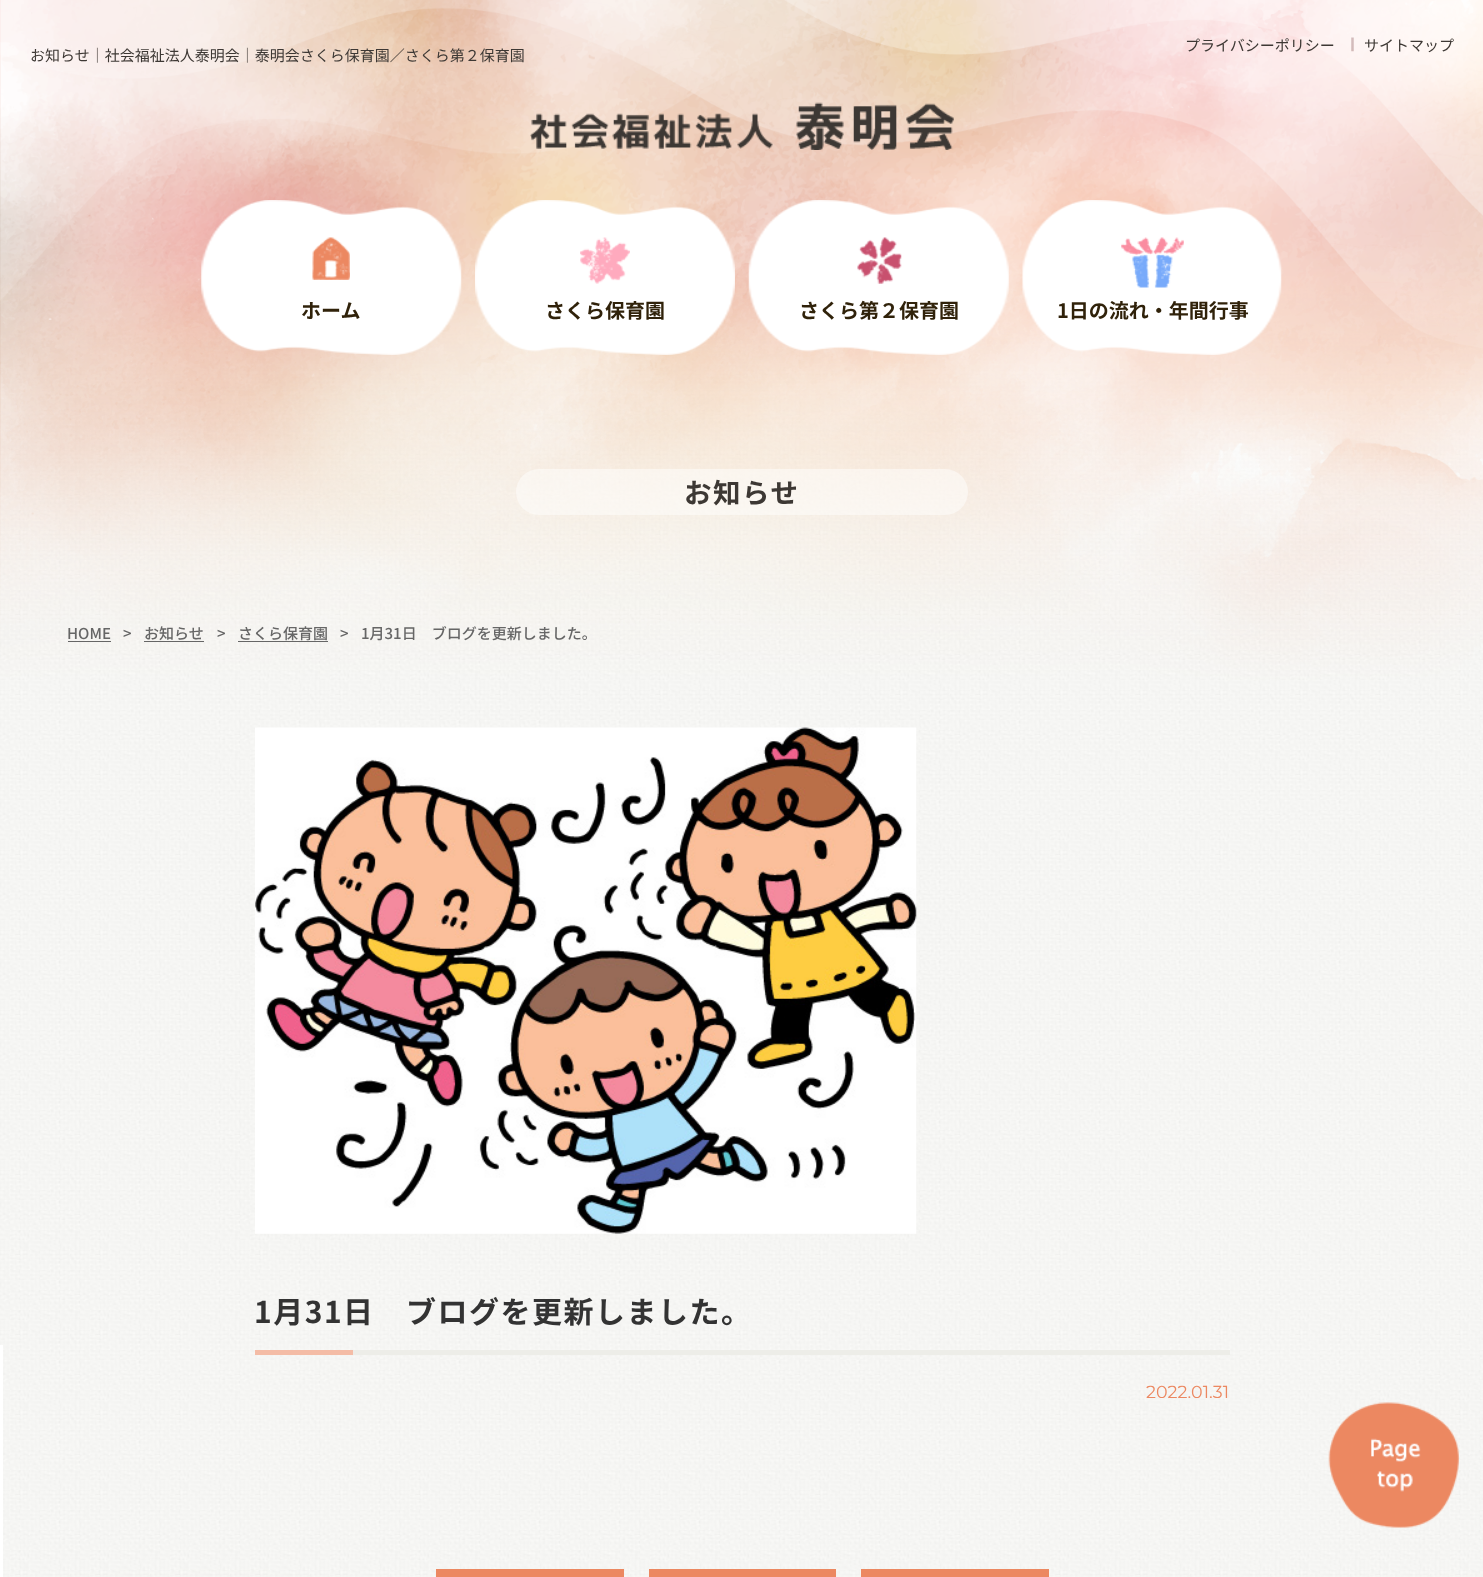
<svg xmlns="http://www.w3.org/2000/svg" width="1483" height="1577">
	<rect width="100%" height="100%" fill="#FFFFFF" />
	<image x="0" y="0" width="1483" height="1577" href="assets/img1.png" />
	<text x="1185" y="51" font-family="Noto Sans JP" font-size="15" fill="#3D3834">プライバシーポリシー</text>
	<image x="1351" y="37" width="3" height="15" href="assets/img2.png" />
	<g font-family="Noto Sans JP" font-size="15" fill="#3D3834">
		<text x="1364" y="51">サイトマップ</text>
		<text x="30" y="61">お知らせ│社会福祉法人泰明会│泰明会さくら保育園／さくら第２保育園</text>
	</g>
	<image x="530" y="102" width="424" height="48" href="assets/img3.png" />
	<image x="201" y="200" width="261" height="155" href="assets/img4.png" />
	<image x="312" y="237" width="38" height="43" href="assets/img5.png" />
	<text x="301" y="318" font-family="Noto Sans JP" font-size="20" font-weight="700" fill="#30220A">ホーム</text>
	<image x="475" y="200" width="260" height="155" href="assets/img6.png" />
	<image x="580" y="237" width="50" height="47" href="assets/img7.png" />
	<text x="545" y="318" font-family="Noto Sans JP" font-size="20" font-weight="700" fill="#30220A">さくら保育園</text>
	<image x="748" y="200" width="261" height="155" href="assets/img8.png" />
	<image x="857" y="237" width="45" height="47" href="assets/img9.png" />
	<text x="799" y="318" font-family="Noto Sans JP" font-size="20" font-weight="700" fill="#30220A">さくら第２保育園</text>
	<image x="1022" y="200" width="260" height="155" href="assets/img10.png" />
	<image x="1121" y="237" width="63" height="51" href="assets/img11.png" />
	<text x="1057" y="318" font-family="Noto Sans JP" font-size="20" font-weight="700" fill="#30220A">1日の流れ・年間行事</text>
	<rect x="516" y="469" width="452" height="46" rx="23" fill="#FFFFFF" fill-opacity="0.48" />
	<text x="684" y="503" font-family="Noto Sans JP" font-size="27.5" font-weight="700" letter-spacing="1.5" fill="#3D3834">お知らせ</text>
	<text x="67" y="639" font-family="Noto Sans JP" font-size="15" font-weight="500" fill="#666666">HOME</text>
	<rect x="68" y="641" width="43" height="1" fill="#666666" />
	<g font-family="Noto Sans JP" font-size="15" font-weight="500" fill="#666666">
		<text x="123" y="639">&gt;</text>
		<text x="144" y="639">お知らせ</text>
	</g>
	<rect x="144" y="641" width="60" height="1" fill="#666666" />
	<g font-family="Noto Sans JP" font-size="15" font-weight="500" fill="#666666">
		<text x="217" y="639">&gt;</text>
		<text x="238" y="639">さくら保育園</text>
	</g>
	<rect x="238" y="641" width="90" height="1" fill="#666666" />
	<g font-family="Noto Sans JP" font-size="15" font-weight="500" fill="#666666">
		<text x="340" y="639">&gt;</text>
		<text x="361" y="639">1月31日　ブログを更新しました。</text>
	</g>
	<image x="255" y="727" width="662" height="507" href="assets/img12.png" />
	<rect x="353" y="1350" width="877" height="5" fill="#EDEDE8" />
	<text x="254" y="1323" font-family="Noto Sans JP" font-size="30" font-weight="700" letter-spacing="1.5" fill="#333333">1月31日　ブログを更新しました。</text>
	<rect x="255" y="1350" width="98" height="5" fill="#F4BCA6" />
	<text x="1146" y="1398" font-family="Montserrat" font-size="17.5" fill="#EC8861">2022.01.31</text>
	<rect x="436" y="1569" width="188" height="8" fill="#EC8861" />
	<rect x="649" y="1569" width="187" height="8" fill="#EC8861" />
	<rect x="861" y="1569" width="188" height="8" fill="#EC8861" />
	<image x="1328" y="1402" width="131" height="126" href="assets/img13.png" />
</svg>
